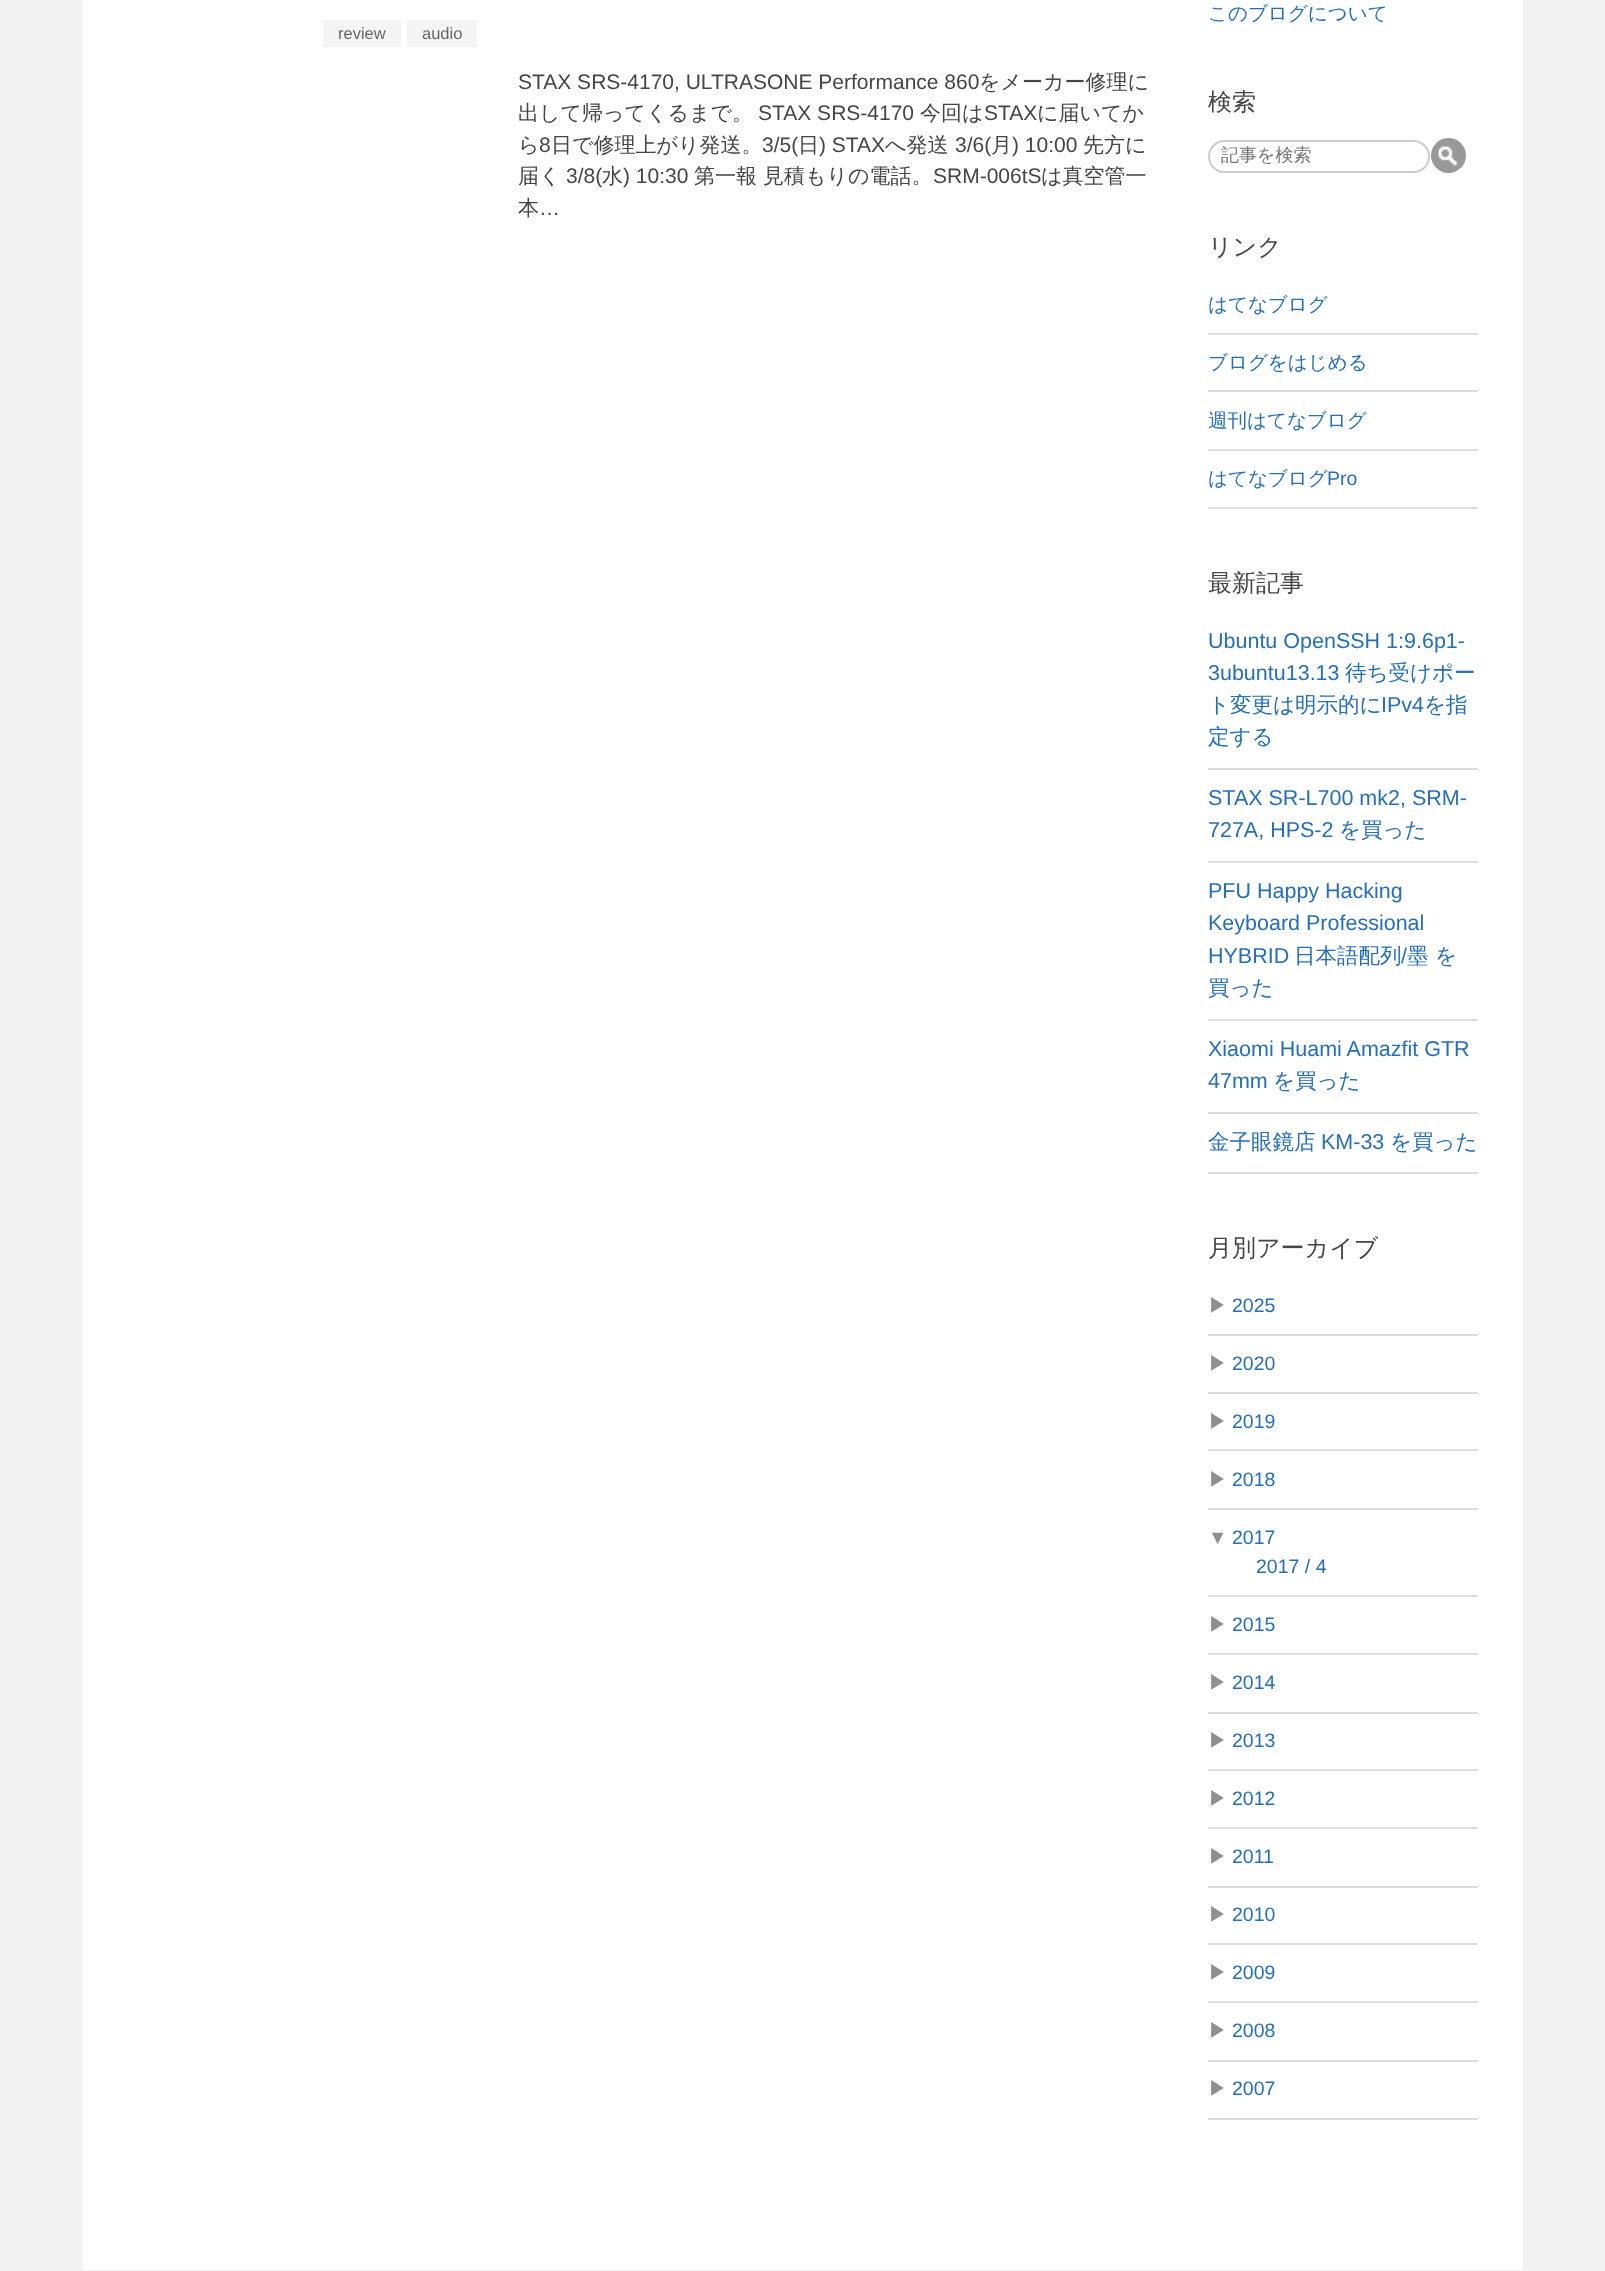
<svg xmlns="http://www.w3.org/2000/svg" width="1605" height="2271">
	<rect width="100%" height="100%" fill="#F3F3F3" />
	<rect x="83" y="0" width="1440" height="2270" fill="#FFFFFF" />
	<rect x="323" y="20" width="78" height="27" fill="#F5F5F5" />
	<text x="338" y="39" font-family="Liberation Sans" font-size="16.5" fill="#666666">review</text>
	<rect x="407" y="20" width="70" height="27" fill="#F5F5F5" />
	<text x="422" y="39" font-family="Liberation Sans" font-size="16.5" fill="#666666">audio</text>
	<text x="518" y="89" font-family="Liberation Sans" font-size="21" fill="#454545">STAX SRS-4170, ULTRASONE Performance 860</text>
	<g font-family="WenQuanYi Zen Hei" font-size="21" font-weight="500" fill="#454545">
		<text x="979" y="89">をメーカー修理に</text>
		<text x="518" y="120">出して帰ってくるまで。</text>
	</g>
	<text x="758" y="120" font-family="Liberation Sans" font-size="21" fill="#454545">STAX SRS-4170</text>
	<text x="920" y="120" font-family="WenQuanYi Zen Hei" font-size="21" font-weight="500" fill="#454545">今回は</text>
	<text x="984" y="120" font-family="Liberation Sans" font-size="21" fill="#454545">STAX</text>
	<g font-family="WenQuanYi Zen Hei" font-size="21" font-weight="500" fill="#454545">
		<text x="1037" y="120">に届いてか</text>
		<text x="518" y="152">ら</text>
	</g>
	<text x="539" y="152" font-family="Liberation Sans" font-size="21" fill="#454545">8</text>
	<text x="551" y="152" font-family="WenQuanYi Zen Hei" font-size="21" font-weight="500" fill="#454545">日で修理上がり発送。</text>
	<text x="762" y="152" font-family="Liberation Sans" font-size="21" fill="#454545">3/5(</text>
	<text x="798" y="152" font-family="WenQuanYi Zen Hei" font-size="21" font-weight="500" fill="#454545">日</text>
	<text x="819" y="152" font-family="Liberation Sans" font-size="21" fill="#454545">) STAX</text>
	<text x="885" y="152" font-family="WenQuanYi Zen Hei" font-size="21" font-weight="500" fill="#454545">へ発送</text>
	<text x="955" y="152" font-family="Liberation Sans" font-size="21" fill="#454545">3/6(</text>
	<text x="991" y="152" font-family="WenQuanYi Zen Hei" font-size="21" font-weight="500" fill="#454545">月</text>
	<text x="1012" y="152" font-family="Liberation Sans" font-size="21" fill="#454545">) 10:00</text>
	<g font-family="WenQuanYi Zen Hei" font-size="21" font-weight="500" fill="#454545">
		<text x="1083" y="152">先方に</text>
		<text x="518" y="183">届く</text>
	</g>
	<text x="566" y="183" font-family="Liberation Sans" font-size="21" fill="#454545">3/8(</text>
	<text x="602" y="183" font-family="WenQuanYi Zen Hei" font-size="21" font-weight="500" fill="#454545">水</text>
	<text x="623" y="183" font-family="Liberation Sans" font-size="21" fill="#454545">) 10:30</text>
	<g font-family="WenQuanYi Zen Hei" font-size="21" font-weight="500" fill="#454545">
		<text x="694" y="183">第一報</text>
		<text x="763" y="183">見積もりの電話。</text>
	</g>
	<text x="933" y="183" font-family="Liberation Sans" font-size="21" fill="#454545">SRM-006tS</text>
	<g font-family="WenQuanYi Zen Hei" font-size="21" font-weight="500" fill="#454545">
		<text x="1041" y="183">は真空管一</text>
		<text x="518" y="215">本</text>
	</g>
	<text x="539" y="215" font-family="Liberation Sans" font-size="21" fill="#454545">…</text>
	<text x="1208" y="20" font-family="WenQuanYi Zen Hei" font-size="19.5" font-weight="500" fill="#256FBA">このブログについて</text>
	<text x="1208" y="110" font-family="WenQuanYi Zen Hei" font-size="24" font-weight="500" fill="#454545">検索</text>
	<rect x="1209" y="141" width="220" height="31" rx="15.5" fill="none" stroke="#CCCCCC" stroke-width="2" />
	<text x="1221" y="161" font-family="WenQuanYi Zen Hei" font-size="18" font-weight="500" fill="#757575">記事を検索</text>
	<circle cx="1448.5" cy="155.5" r="17.5" fill="#999999" />
	<image x="1438" y="146" width="20" height="21" href="assets/img1.png" />
	<text x="1208" y="255" font-family="WenQuanYi Zen Hei" font-size="24" font-weight="500" fill="#454545">リンク</text>
	<rect x="1208" y="333" width="270" height="2" fill="#DDDDDD" />
	<text x="1208" y="311" font-family="WenQuanYi Zen Hei" font-size="19.5" font-weight="500" fill="#256FBA">はてなブログ</text>
	<rect x="1208" y="390" width="270" height="2" fill="#DDDDDD" />
	<text x="1208" y="369" font-family="WenQuanYi Zen Hei" font-size="19.5" font-weight="500" fill="#256FBA">ブログをはじめる</text>
	<rect x="1208" y="449" width="270" height="2" fill="#DDDDDD" />
	<text x="1208" y="427" font-family="WenQuanYi Zen Hei" font-size="19.5" font-weight="500" fill="#256FBA">週刊はてなブログ</text>
	<rect x="1208" y="507" width="270" height="2" fill="#DDDDDD" />
	<text x="1208" y="485" font-family="WenQuanYi Zen Hei" font-size="19.5" font-weight="500" fill="#256FBA">はてなブログ</text>
	<text x="1327" y="485" font-family="Liberation Sans" font-size="19.5" fill="#256FBA">Pro</text>
	<text x="1208" y="591" font-family="WenQuanYi Zen Hei" font-size="24" font-weight="500" fill="#454545">最新記事</text>
	<rect x="1208" y="768" width="270" height="2" fill="#DDDDDD" />
	<g font-family="Liberation Sans" font-size="21.5" fill="#256FBA">
		<text x="1208" y="648">Ubuntu OpenSSH 1:9.6p1-</text>
		<text x="1208" y="680">3ubuntu13.13</text>
	</g>
	<g font-family="WenQuanYi Zen Hei" font-size="21.5" font-weight="500" fill="#256FBA">
		<text x="1345" y="680">待ち受けポー</text>
		<text x="1208" y="712">ト変更は明示的に</text>
	</g>
	<text x="1381" y="712" font-family="Liberation Sans" font-size="21.5" fill="#256FBA">IPv4</text>
	<g font-family="WenQuanYi Zen Hei" font-size="21.5" font-weight="500" fill="#256FBA">
		<text x="1424" y="712">を指</text>
		<text x="1208" y="744">定する</text>
	</g>
	<rect x="1208" y="861" width="270" height="2" fill="#DDDDDD" />
	<g font-family="Liberation Sans" font-size="21.5" fill="#256FBA">
		<text x="1208" y="805">STAX SR-L700 mk2, SRM-</text>
		<text x="1208" y="837">727A, HPS-2</text>
	</g>
	<text x="1339" y="837" font-family="WenQuanYi Zen Hei" font-size="21.5" font-weight="500" fill="#256FBA">を買った</text>
	<rect x="1208" y="1019" width="270" height="2" fill="#DDDDDD" />
	<g font-family="Liberation Sans" font-size="21.5" fill="#256FBA">
		<text x="1208" y="898">PFU Happy Hacking</text>
		<text x="1208" y="930">Keyboard Professional</text>
		<text x="1208" y="963">HYBRID</text>
	</g>
	<text x="1294" y="963" font-family="WenQuanYi Zen Hei" font-size="21.5" font-weight="500" fill="#256FBA">日本語配列</text>
	<text x="1401" y="963" font-family="Liberation Sans" font-size="21.5" fill="#256FBA">/</text>
	<g font-family="WenQuanYi Zen Hei" font-size="21.5" font-weight="500" fill="#256FBA">
		<text x="1407" y="963">墨 を</text>
		<text x="1208" y="995">買った</text>
	</g>
	<rect x="1208" y="1112" width="270" height="2" fill="#DDDDDD" />
	<g font-family="Liberation Sans" font-size="21.5" fill="#256FBA">
		<text x="1208" y="1056">Xiaomi Huami Amazfit GTR</text>
		<text x="1208" y="1088">47mm</text>
	</g>
	<text x="1273" y="1088" font-family="WenQuanYi Zen Hei" font-size="21.5" font-weight="500" fill="#256FBA">を買った</text>
	<rect x="1208" y="1172" width="270" height="2" fill="#DDDDDD" />
	<text x="1208" y="1149" font-family="WenQuanYi Zen Hei" font-size="21.5" font-weight="500" fill="#256FBA">金子眼鏡店</text>
	<text x="1321" y="1149" font-family="Liberation Sans" font-size="21.5" fill="#256FBA">KM-33</text>
	<text x="1390" y="1149" font-family="WenQuanYi Zen Hei" font-size="21.5" font-weight="500" fill="#256FBA">を買った</text>
	<text x="1208" y="1256" font-family="WenQuanYi Zen Hei" font-size="24" font-weight="500" fill="#454545">月別アーカイブ</text>
	<rect x="1208" y="1334" width="270" height="2" fill="#DDDDDD" />
	<text x="1208" y="1312" font-family="WenQuanYi Zen Hei" font-size="19.5" font-weight="500" fill="#8F8F8F">▶</text>
	<text x="1232" y="1312" font-family="Liberation Sans" font-size="19.5" fill="#256FBA">2025</text>
	<rect x="1208" y="1392" width="270" height="2" fill="#DDDDDD" />
	<text x="1208" y="1370" font-family="WenQuanYi Zen Hei" font-size="19.5" font-weight="500" fill="#8F8F8F">▶</text>
	<text x="1232" y="1370" font-family="Liberation Sans" font-size="19.5" fill="#256FBA">2020</text>
	<rect x="1208" y="1449" width="270" height="2" fill="#DDDDDD" />
	<text x="1208" y="1428" font-family="WenQuanYi Zen Hei" font-size="19.5" font-weight="500" fill="#8F8F8F">▶</text>
	<text x="1232" y="1428" font-family="Liberation Sans" font-size="19.5" fill="#256FBA">2019</text>
	<rect x="1208" y="1508" width="270" height="2" fill="#DDDDDD" />
	<text x="1208" y="1486" font-family="WenQuanYi Zen Hei" font-size="19.5" font-weight="500" fill="#8F8F8F">▶</text>
	<text x="1232" y="1486" font-family="Liberation Sans" font-size="19.5" fill="#256FBA">2018</text>
	<rect x="1208" y="1595" width="270" height="2" fill="#DDDDDD" />
	<text x="1208" y="1544" font-family="Liberation Sans" font-size="19.5" fill="#8F8F8F">▼</text>
	<g font-family="Liberation Sans" font-size="19.5" fill="#256FBA">
		<text x="1232" y="1544">2017</text>
		<text x="1256" y="1573">2017 / 4</text>
	</g>
	<rect x="1208" y="1653" width="270" height="2" fill="#DDDDDD" />
	<text x="1208" y="1631" font-family="WenQuanYi Zen Hei" font-size="19.5" font-weight="500" fill="#8F8F8F">▶</text>
	<text x="1232" y="1631" font-family="Liberation Sans" font-size="19.5" fill="#256FBA">2015</text>
	<rect x="1208" y="1712" width="270" height="2" fill="#DDDDDD" />
	<text x="1208" y="1689" font-family="WenQuanYi Zen Hei" font-size="19.5" font-weight="500" fill="#8F8F8F">▶</text>
	<text x="1232" y="1689" font-family="Liberation Sans" font-size="19.5" fill="#256FBA">2014</text>
	<rect x="1208" y="1769" width="270" height="2" fill="#DDDDDD" />
	<text x="1208" y="1747" font-family="WenQuanYi Zen Hei" font-size="19.5" font-weight="500" fill="#8F8F8F">▶</text>
	<text x="1232" y="1747" font-family="Liberation Sans" font-size="19.5" fill="#256FBA">2013</text>
	<rect x="1208" y="1827" width="270" height="2" fill="#DDDDDD" />
	<text x="1208" y="1805" font-family="WenQuanYi Zen Hei" font-size="19.5" font-weight="500" fill="#8F8F8F">▶</text>
	<text x="1232" y="1805" font-family="Liberation Sans" font-size="19.5" fill="#256FBA">2012</text>
	<rect x="1208" y="1886" width="270" height="2" fill="#DDDDDD" />
	<text x="1208" y="1863" font-family="WenQuanYi Zen Hei" font-size="19.5" font-weight="500" fill="#8F8F8F">▶</text>
	<text x="1232" y="1863" font-family="Liberation Sans" font-size="19.5" fill="#256FBA">2011</text>
	<rect x="1208" y="1943" width="270" height="2" fill="#DDDDDD" />
	<text x="1208" y="1921" font-family="WenQuanYi Zen Hei" font-size="19.5" font-weight="500" fill="#8F8F8F">▶</text>
	<text x="1232" y="1921" font-family="Liberation Sans" font-size="19.5" fill="#256FBA">2010</text>
	<rect x="1208" y="2001" width="270" height="2" fill="#DDDDDD" />
	<text x="1208" y="1979" font-family="WenQuanYi Zen Hei" font-size="19.5" font-weight="500" fill="#8F8F8F">▶</text>
	<text x="1232" y="1979" font-family="Liberation Sans" font-size="19.5" fill="#256FBA">2009</text>
	<rect x="1208" y="2060" width="270" height="2" fill="#DDDDDD" />
	<text x="1208" y="2037" font-family="WenQuanYi Zen Hei" font-size="19.5" font-weight="500" fill="#8F8F8F">▶</text>
	<text x="1232" y="2037" font-family="Liberation Sans" font-size="19.5" fill="#256FBA">2008</text>
	<rect x="1208" y="2118" width="270" height="2" fill="#DDDDDD" />
	<text x="1208" y="2095" font-family="WenQuanYi Zen Hei" font-size="19.5" font-weight="500" fill="#8F8F8F">▶</text>
	<text x="1232" y="2095" font-family="Liberation Sans" font-size="19.5" fill="#256FBA">2007</text>
</svg>
